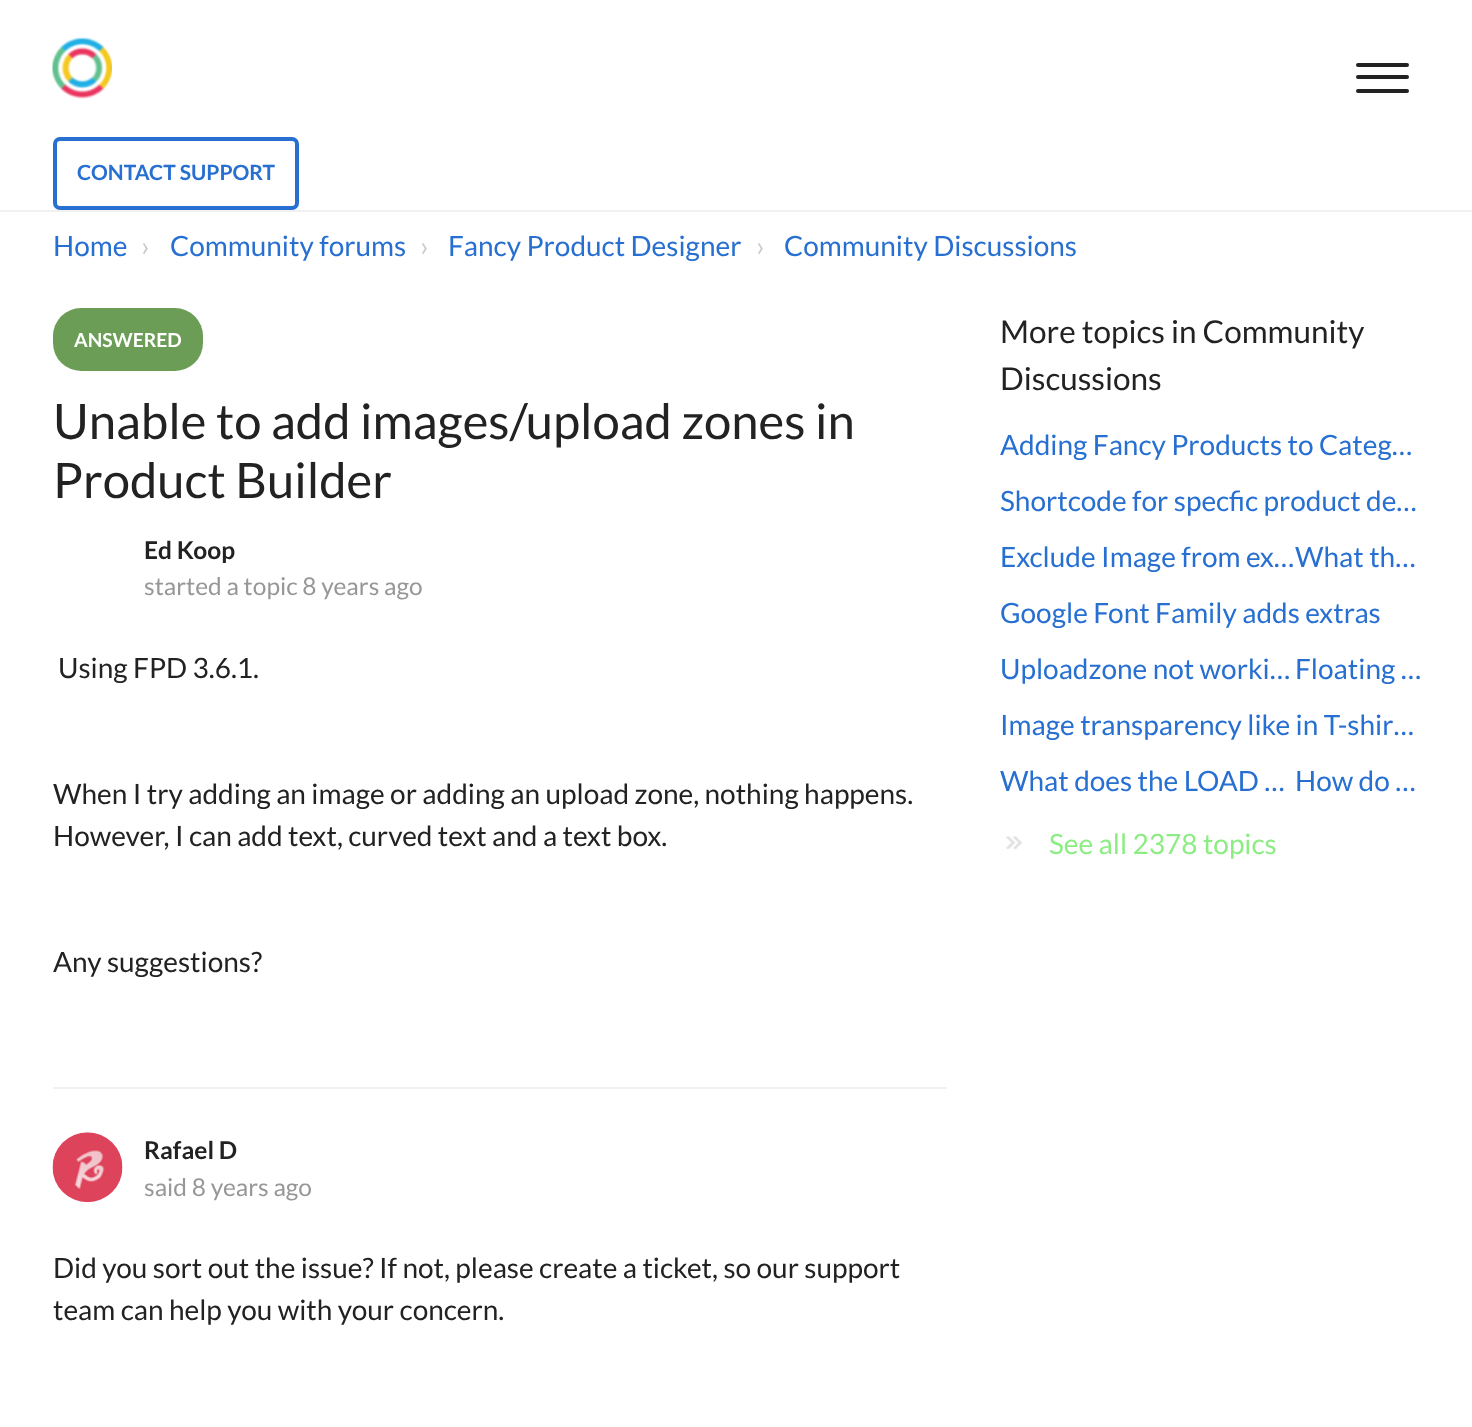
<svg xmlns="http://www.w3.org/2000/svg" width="1472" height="1427">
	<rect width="100%" height="100%" fill="#FFFFFF" />
	<rect x="0" y="210" width="1472" height="2" fill="#F1F1F1" />
	<image x="52" y="37" width="60" height="62" href="assets/img1.png" />
	<rect x="1356" y="75" width="53" height="4" rx="2" fill="#222222" />
	<rect x="1356" y="63" width="53" height="4" rx="2" fill="#222222" />
	<rect x="1356" y="89" width="53" height="4" rx="2" fill="#222222" />
	<rect x="55" y="139" width="242" height="69" rx="5" fill="none" stroke="#276FD0" stroke-width="4" />
	<text x="77" y="180" font-family="Lato" font-size="21" font-weight="700" fill="#276FD0">CONTACT SUPPORT</text>
	<text x="53" y="256" font-family="Lato" font-size="28" fill="#276FD0">Home</text>
	<text x="141" y="256" font-family="Lato" font-size="28" fill="#CCCCCC">›</text>
	<text x="170" y="256" font-family="Lato" font-size="28" fill="#276FD0">Community forums</text>
	<text x="420" y="256" font-family="Lato" font-size="28" fill="#CCCCCC">›</text>
	<text x="448" y="256" font-family="Lato" font-size="28" fill="#276FD0">Fancy Product Designer</text>
	<text x="756" y="256" font-family="Lato" font-size="28" fill="#CCCCCC">›</text>
	<text x="784" y="256" font-family="Lato" font-size="28" fill="#276FD0">Community Discussions</text>
	<rect x="53" y="1087" width="894" height="2" fill="#F1F1F1" />
	<rect x="53" y="308" width="150" height="63" rx="28" fill="#6B9D56" />
	<text x="74" y="347" font-family="Lato" font-size="19.25" font-weight="700" fill="#FFFFFF">ANSWERED</text>
	<g font-family="Lato" font-size="49" fill="#222222">
		<text x="53" y="439">Unable to add images/upload zones in</text>
		<text x="53" y="498">Product Builder</text>
	</g>
	<text x="144" y="559" font-family="Lato" font-size="24.5" font-weight="700" fill="#222222">Ed Koop</text>
	<text x="144" y="595" font-family="Lato" font-size="24.5" fill="#979797">started a topic 8 years ago</text>
	<g font-family="Lato" font-size="28" fill="#222222">
		<text x="58" y="678">Using FPD 3.6.1.</text>
		<text x="53" y="804">When I try adding an image or adding an upload zone, nothing happens.</text>
		<text x="53" y="846">However, I can add text, curved text and a text box.</text>
		<text x="53" y="972">Any suggestions?</text>
	</g>
	<image x="52" y="1132" width="71" height="71" href="assets/img2.png" />
	<text x="144" y="1159" font-family="Lato" font-size="24.5" font-weight="700" fill="#222222">Rafael D</text>
	<text x="144" y="1196" font-family="Lato" font-size="24.5" fill="#979797">said 8 years ago</text>
	<g font-family="Lato" font-size="28" fill="#222222">
		<text x="53" y="1278">Did you sort out the issue? If not, please create a ticket, so our support</text>
		<text x="53" y="1320">team can help you with your concern.</text>
	</g>
	<g font-family="Lato" font-size="31.5" fill="#222222">
		<text x="1000" y="343">More topics in Community</text>
		<text x="1000" y="390">Discussions</text>
	</g>
	<g font-family="Lato" font-size="28" fill="#276FD0">
		<text x="1000" y="455">Adding Fancy Products to Categ…</text>
		<text x="1000" y="511">Shortcode for specfic product de…</text>
		<text x="1000" y="567">Exclude Image from ex…</text>
		<text x="1295" y="567">What th…</text>
		<text x="1000" y="623">Google Font Family adds extras</text>
		<text x="1000" y="679">Uploadzone not worki…</text>
		<text x="1295" y="679">Floating …</text>
		<text x="1000" y="735">Image transparency like in T-shir…</text>
		<text x="1000" y="791">What does the LOAD …</text>
		<text x="1295" y="791">How do …</text>
	</g>
	<image x="1006" y="836" width="17" height="14" href="assets/img3.png" />
	<text x="1049" y="854" font-family="Lato" font-size="28" fill="#8BED82">See all 2378 topics</text>
</svg>
